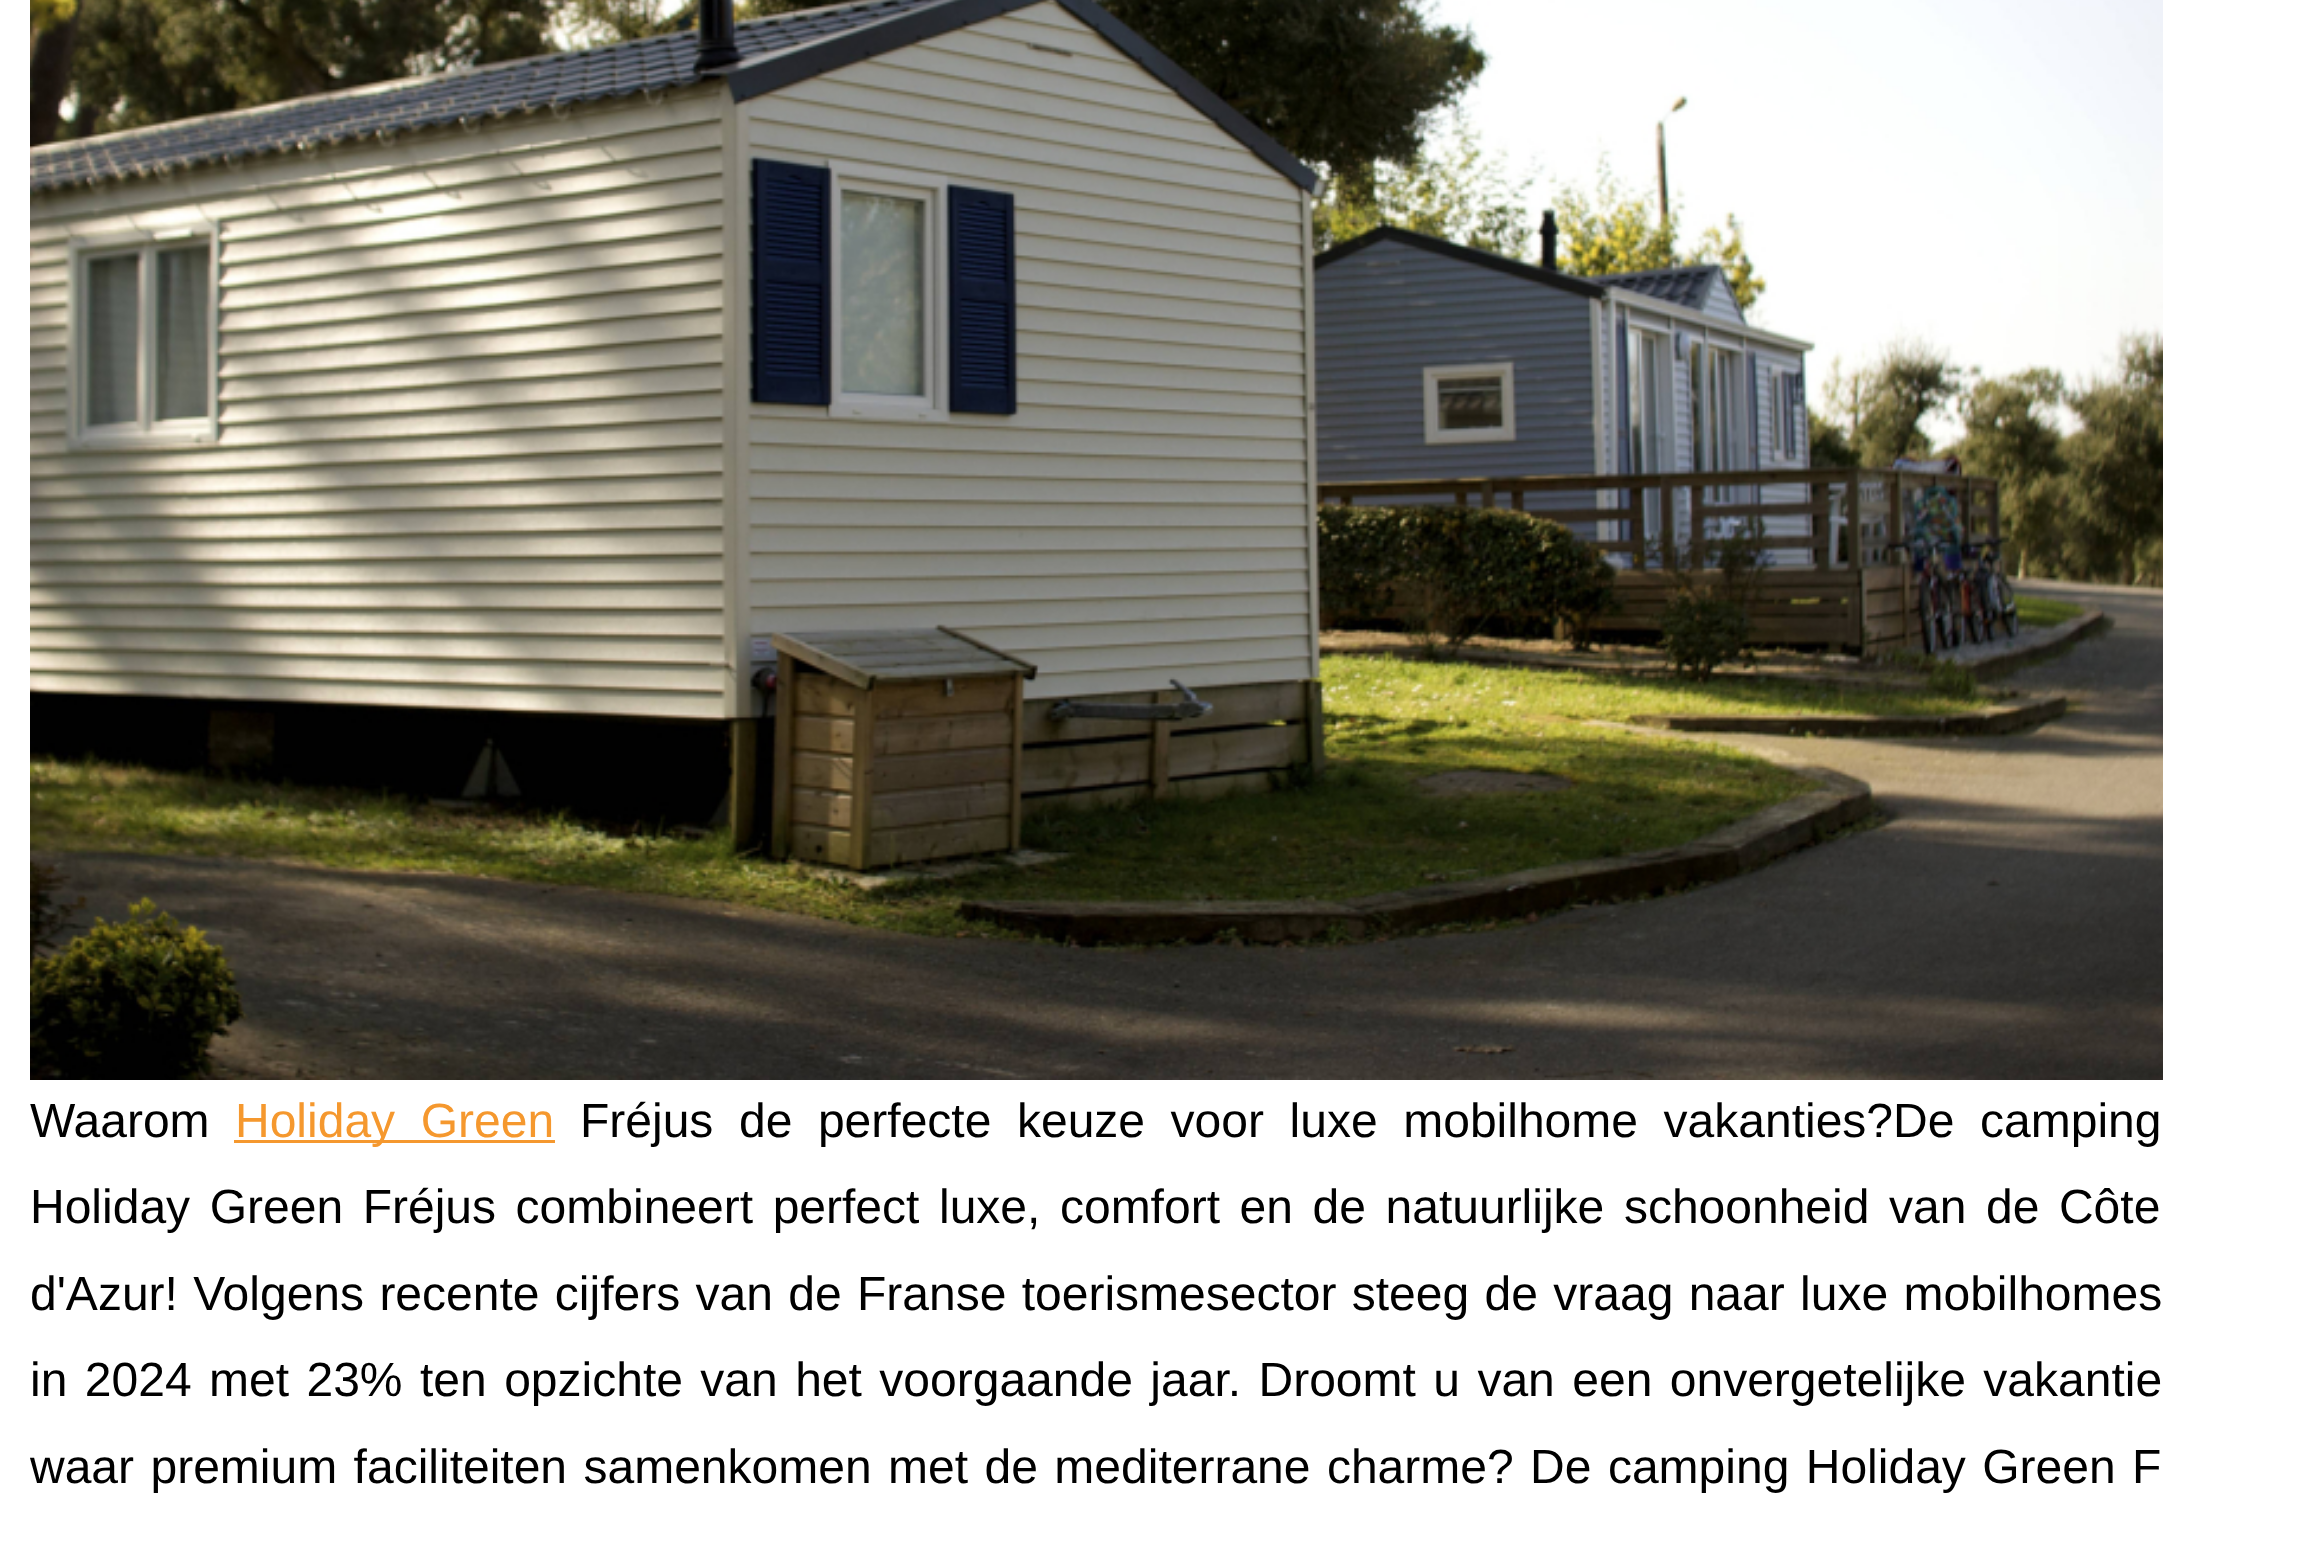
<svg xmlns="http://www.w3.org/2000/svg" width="2307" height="1559">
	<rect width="100%" height="100%" fill="#FFFFFF" />
	<image x="30" y="0" width="2133" height="1080" href="assets/img1.png" />
	<text x="30" y="1137" font-family="Liberation Sans" font-size="48" fill="#000000">Waarom</text>
	<rect x="234" y="1140" width="321" height="3" fill="#F5982E" />
	<text x="235" y="1137" word-spacing="12.25" font-family="Liberation Sans" font-size="48" fill="#F5982E">Holiday Green</text>
	<g font-family="Liberation Sans" font-size="48" fill="#000000">
		<text x="580" y="1137" word-spacing="12.25">Fréjus de perfecte keuze voor luxe mobilhome vakanties?De camping</text>
		<text x="30" y="1223" word-spacing="6.25">Holiday Green Fréjus combineert perfect luxe, comfort en de natuurlijke schoonheid van de Côte</text>
		<text x="30" y="1310" word-spacing="2">d'Azur! Volgens recente cijfers van de Franse toerismesector steeg de vraag naar luxe mobilhomes</text>
		<text x="30" y="1396" word-spacing="4.1">in 2024 met 23% ten opzichte van het voorgaande jaar. Droomt u van een onvergetelijke vakantie</text>
		<text x="30" y="1483" word-spacing="3.1">waar premium faciliteiten samenkomen met de mediterrane charme? De camping Holiday Green F</text>
	</g>
</svg>
